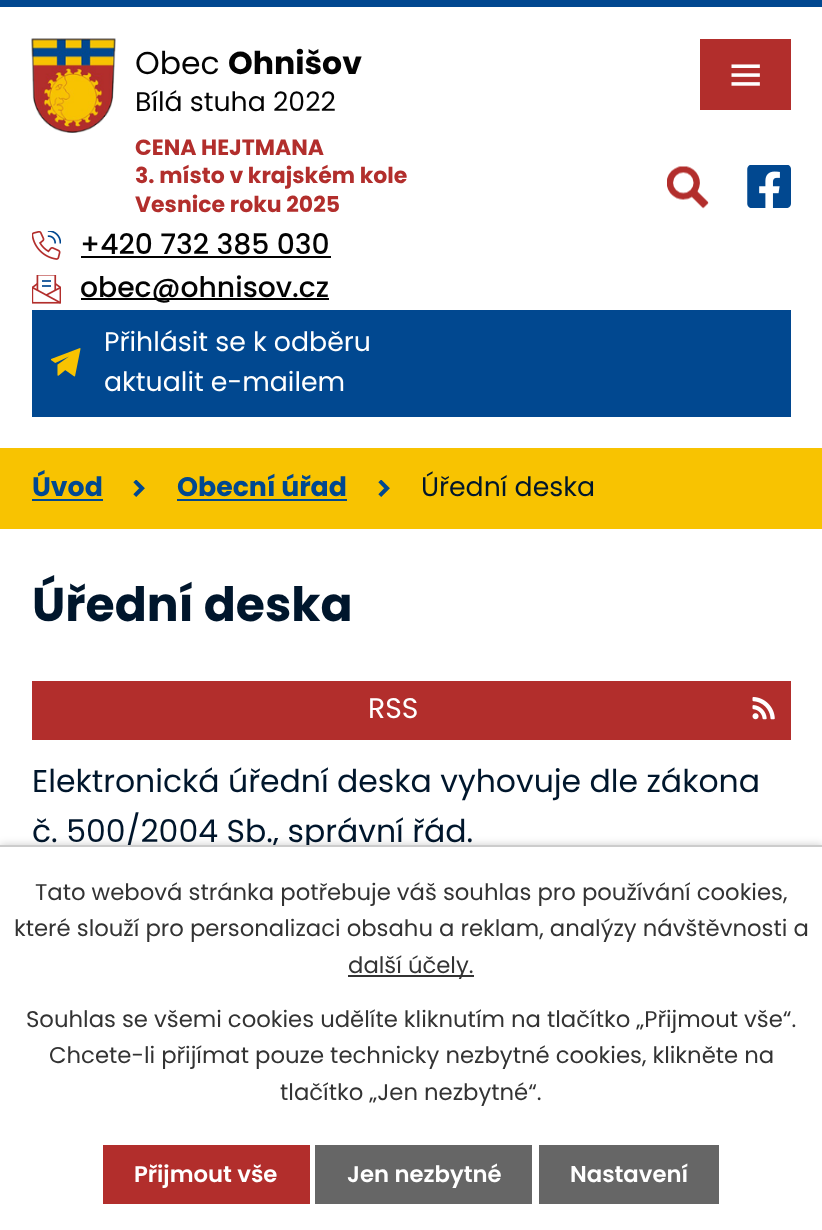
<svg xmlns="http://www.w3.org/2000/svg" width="822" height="1230">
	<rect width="100%" height="100%" fill="#FFFFFF" />
	<rect x="0" y="0" width="822" height="7" fill="#014890" />
	<image x="31" y="38" width="85" height="95" href="assets/img1.png" />
	<text x="135" y="74" font-family="Poppins" font-size="31.5" fill="#030303">Obec</text>
	<text x="228" y="74" font-family="Poppins" font-size="31.5" font-weight="700" fill="#030303">Ohnišov</text>
	<text x="135" y="111" font-family="Poppins" font-size="26.75" fill="#030303">Bílá stuha 2022</text>
	<g font-family="Poppins" font-size="22" font-weight="700" fill="#B22E2C">
		<text x="135" y="155">CENA HEJTMANA</text>
		<text x="135" y="183">3. místo v krajském kole</text>
		<text x="135" y="212">Vesnice roku 2025</text>
	</g>
	<image x="667" y="166" width="42" height="43" href="assets/img2.png" />
	<image x="747" y="165" width="44" height="43" href="assets/img3.png" />
	<image x="32" y="231" width="29" height="29" href="assets/img4.png" />
	<text x="80" y="254" font-family="Poppins" font-size="28.25" font-weight="500" fill="#030303">+420 732 385 030</text>
	<rect x="81" y="256" width="250" height="2" fill="#000000" />
	<image x="32" y="275" width="29" height="29" href="assets/img5.png" />
	<rect x="81" y="298" width="248" height="2" fill="#000000" />
	<text x="80" y="297" font-family="Poppins" font-size="28.25" font-weight="500" fill="#030303">obec@ohnisov.cz</text>
	<rect x="32" y="310" width="759" height="107" fill="#014890" />
	<text x="104" y="351" font-family="Poppins" font-size="26.75" fill="#FFFFFF">Přihlásit se k odběru</text>
	<image x="51" y="348" width="30" height="29" href="assets/img6.png" />
	<text x="104" y="391" font-family="Poppins" font-size="26.75" fill="#FFFFFF">aktualit e-mailem</text>
	<rect x="700" y="39" width="91" height="71" fill="#B22E2C" />
	<image x="731" y="64" width="29" height="22" href="assets/img7.png" />
	<rect x="0" y="448" width="822" height="81" fill="#F8C301" />
	<text x="32" y="496" font-family="Poppins" font-size="26.75" font-weight="700" fill="#014890">Úvod</text>
	<rect x="32" y="499" width="71" height="2" fill="#014890" />
	<image x="133" y="480" width="12" height="17" href="assets/img8.png" />
	<text x="177" y="496" font-family="Poppins" font-size="26.75" font-weight="700" fill="#014890">Obecní úřad</text>
	<rect x="177" y="499" width="170" height="2" fill="#014890" />
	<image x="378" y="480" width="12" height="17" href="assets/img8.png" />
	<text x="421" y="496" font-family="Poppins" font-size="26.75" fill="#00162C">Úřední deska</text>
	<text x="32" y="621" font-family="Poppins" font-size="47.25" font-weight="700" fill="#00162C">Úřední deska</text>
	<rect x="32" y="681" width="759" height="59" fill="#B22E2C" />
	<text x="368" y="718" font-family="Poppins" font-size="28.25" fill="#FFFFFF">RSS</text>
	<image x="752" y="697" width="23" height="23" href="assets/img9.png" />
	<g font-family="Poppins" font-size="31.5" fill="#00162C">
		<text x="32" y="792">Elektronická úřední deska vyhovuje dle zákona</text>
		<text x="32" y="842">č. 500/2004 Sb., správní řád.</text>
	</g>
	<rect x="0" y="845" width="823" height="385" fill="#000000" fill-opacity="0.2" filter="blur(4.5px)" />
	<rect x="0" y="847" width="822" height="383" fill="#FFFFFF" />
	<rect x="0" y="845" width="822" height="2" fill="#CCCCCC" />
	<g font-family="Poppins" font-size="22.75" fill="#333333">
		<text x="35" y="900">Tato webová stránka potřebuje váš souhlas pro používání cookies,</text>
		<text x="14" y="936">které slouží pro personalizaci obsahu a reklam, analýzy návštěvnosti a</text>
	</g>
	<rect x="348" y="975" width="126" height="2" fill="#333333" />
	<g font-family="Poppins" font-size="22.75" fill="#333333">
		<text x="348" y="973">další účely.</text>
		<text x="26" y="1027">Souhlas se všemi cookies udělíte kliknutím na tlačítko „Přijmout vše“.</text>
		<text x="49" y="1063">Chcete-li přijímat pouze technicky nezbytné cookies, klikněte na</text>
		<text x="280" y="1100">tlačítko „Jen nezbytné“.</text>
	</g>
	<rect x="103" y="1145" width="207" height="59" fill="#B22E2C" />
	<text x="134" y="1182" font-family="Poppins" font-size="22.75" font-weight="600" fill="#FFFFFF">Přijmout vše</text>
	<rect x="315" y="1145" width="217" height="59" fill="#666666" />
	<text x="347" y="1182" font-family="Poppins" font-size="22.75" font-weight="600" fill="#FFFFFF">Jen nezbytné</text>
	<rect x="539" y="1145" width="180" height="59" fill="#666666" />
	<text x="570" y="1182" font-family="Poppins" font-size="22.75" font-weight="600" fill="#FFFFFF">Nastavení</text>
</svg>
